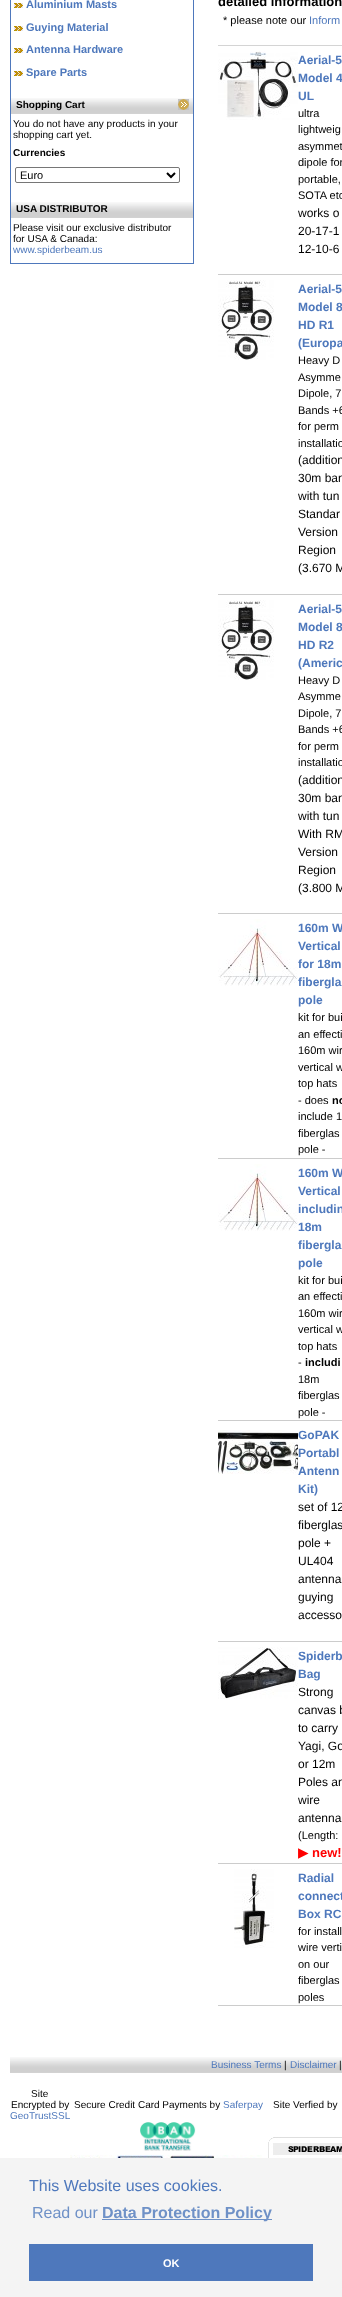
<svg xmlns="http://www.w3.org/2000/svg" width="342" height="2297">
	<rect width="100%" height="100%" fill="#FFFFFF" />
	<rect x="10.5" y="-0.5" width="183" height="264" fill="none" stroke="#4E78BC" />
	<image x="14" y="3" width="9" height="5" href="assets/img1.png" />
	<text x="26" y="8" font-family="Liberation Sans" font-size="11" font-weight="700" fill="#4E78BC">Aluminium Masts</text>
	<image x="14" y="26" width="9" height="5" href="assets/img1.png" />
	<text x="26" y="31" font-family="Liberation Sans" font-size="11" font-weight="700" fill="#4E78BC">Guying Material</text>
	<image x="14" y="48" width="9" height="5" href="assets/img1.png" />
	<text x="26" y="53" font-family="Liberation Sans" font-size="11" font-weight="700" fill="#4E78BC">Antenna Hardware</text>
	<image x="14" y="71" width="9" height="5" href="assets/img1.png" />
	<text x="26" y="76" font-family="Liberation Sans" font-size="11" font-weight="700" fill="#4E78BC">Spare Parts</text>
	<image x="11" y="98" width="182" height="16" href="assets/img2.png" />
	<text x="16" y="108" font-family="Liberation Sans" font-size="10" font-weight="700" fill="#000000">Shopping Cart</text>
	<image x="178" y="99" width="11" height="11" href="assets/img3.png" />
	<g font-family="Liberation Sans" font-size="10" fill="#000000">
		<text x="13" y="127">You do not have any products in your</text>
		<text x="13" y="138">shopping cart yet.</text>
	</g>
	<text x="13" y="156" font-family="Liberation Sans" font-size="10" font-weight="700" fill="#000000">Currencies</text>
	<rect x="15.5" y="167.5" width="164" height="15" rx="1.5" fill="none" stroke="#767676" />
	<path d="M167 173L171 177L175 173" fill="none" stroke="#000000" stroke-width="2" />
	<text x="20" y="179" font-family="Liberation Sans" font-size="11" fill="#000000">Euro</text>
	<image x="11" y="202" width="182" height="16" href="assets/img2.png" />
	<text x="16" y="212" font-family="Liberation Sans" font-size="10" font-weight="700" fill="#000000">USA DISTRIBUTOR</text>
	<g font-family="Liberation Sans" font-size="10" fill="#000000">
		<text x="13" y="231">Please visit our exclusive distributor</text>
		<text x="13" y="242">for USA &amp; Canada:</text>
	</g>
	<text x="13" y="253" font-family="Liberation Sans" font-size="10" fill="#4E78BC">www.spiderbeam.us</text>
	<text x="218" y="6" font-family="Liberation Sans" font-size="13" font-weight="700" fill="#000000">detailed information</text>
	<text x="223" y="24" font-family="Liberation Sans" font-size="11" fill="#000000">* please note our</text>
	<text x="309" y="24" font-family="Liberation Sans" font-size="11" fill="#4E78BC">Inform</text>
	<rect x="218" y="45" width="124" height="1" fill="#D4D4D4" />
	<rect x="218" y="274" width="124" height="1" fill="#CCCCCC" />
	<image x="218" y="51" width="80" height="69" href="assets/img4.png" />
	<g font-family="Liberation Sans" font-size="12" font-weight="700" fill="#4E78BC">
		<text x="298" y="64">Aerial-5</text>
		<text x="298" y="82">Model 4</text>
		<text x="298" y="100">UL</text>
	</g>
	<g font-family="Liberation Sans" font-size="11" fill="#000000">
		<text x="298" y="117">ultra</text>
		<text x="298" y="133">lightweig</text>
		<text x="298" y="150">asymmet</text>
		<text x="298" y="166">dipole for</text>
		<text x="298" y="183">portable,</text>
		<text x="298" y="199">SOTA etc</text>
	</g>
	<g font-family="Liberation Sans" font-size="12" fill="#000000">
		<text x="298" y="217">works o</text>
		<text x="298" y="235">20-17-1</text>
		<text x="298" y="253">12-10-6</text>
	</g>
	<rect x="218" y="594" width="124" height="1" fill="#CCCCCC" />
	<image x="218" y="280" width="56" height="80" href="assets/img5.png" />
	<g font-family="Liberation Sans" font-size="12" font-weight="700" fill="#4E78BC">
		<text x="298" y="293">Aerial-5</text>
		<text x="298" y="311">Model 8</text>
		<text x="298" y="329">HD R1</text>
		<text x="298" y="347">(Europa</text>
	</g>
	<g font-family="Liberation Sans" font-size="11" fill="#000000">
		<text x="298" y="364">Heavy D</text>
		<text x="298" y="381">Asymme</text>
		<text x="298" y="397">Dipole, 7</text>
		<text x="298" y="414">Bands +6</text>
		<text x="298" y="430">for perm</text>
		<text x="298" y="447">installatio</text>
	</g>
	<g font-family="Liberation Sans" font-size="12" fill="#000000">
		<text x="298" y="464">(addition</text>
		<text x="298" y="482">30m ban</text>
		<text x="298" y="500">with tun</text>
		<text x="298" y="518">Standar</text>
		<text x="298" y="536">Version</text>
		<text x="298" y="554">Region</text>
		<text x="298" y="572">(3.670 M</text>
	</g>
	<rect x="218" y="913" width="124" height="1" fill="#CCCCCC" />
	<image x="218" y="600" width="56" height="80" href="assets/img5.png" />
	<g font-family="Liberation Sans" font-size="12" font-weight="700" fill="#4E78BC">
		<text x="298" y="613">Aerial-5</text>
		<text x="298" y="631">Model 8</text>
		<text x="298" y="649">HD R2</text>
		<text x="298" y="667">(Americ</text>
	</g>
	<g font-family="Liberation Sans" font-size="11" fill="#000000">
		<text x="298" y="684">Heavy D</text>
		<text x="298" y="700">Asymme</text>
		<text x="298" y="717">Dipole, 7</text>
		<text x="298" y="733">Bands +6</text>
		<text x="298" y="750">for perm</text>
		<text x="298" y="766">installatio</text>
	</g>
	<g font-family="Liberation Sans" font-size="12" fill="#000000">
		<text x="298" y="784">(addition</text>
		<text x="298" y="802">30m ban</text>
		<text x="298" y="820">with tun</text>
		<text x="298" y="838">With RM</text>
		<text x="298" y="856">Version</text>
		<text x="298" y="874">Region</text>
		<text x="298" y="892">(3.800 M</text>
	</g>
	<rect x="218" y="1158" width="124" height="1" fill="#CCCCCC" />
	<image x="218" y="919" width="80" height="67" href="assets/img6.png" />
	<g font-family="Liberation Sans" font-size="12" font-weight="700" fill="#4E78BC">
		<text x="298" y="932">160m W</text>
		<text x="298" y="950">Vertical</text>
		<text x="298" y="968">for 18m</text>
		<text x="298" y="986">fibergla</text>
		<text x="298" y="1004">pole</text>
	</g>
	<g font-family="Liberation Sans" font-size="11" fill="#000000">
		<text x="298" y="1021">kit for bui</text>
		<text x="298" y="1038">an effecti</text>
		<text x="298" y="1054">160m wir</text>
		<text x="298" y="1071">vertical w</text>
		<text x="298" y="1087">top hats</text>
		<text x="298" y="1104">- does</text>
	</g>
	<text x="332" y="1104" font-family="Liberation Sans" font-size="11" font-weight="700" fill="#000000">no</text>
	<g font-family="Liberation Sans" font-size="11" fill="#000000">
		<text x="298" y="1120">include 1</text>
		<text x="298" y="1137">fiberglas</text>
		<text x="298" y="1153">pole -</text>
	</g>
	<rect x="218" y="1420" width="124" height="1" fill="#CCCCCC" />
	<image x="218" y="1164" width="80" height="67" href="assets/img6.png" />
	<g font-family="Liberation Sans" font-size="12" font-weight="700" fill="#4E78BC">
		<text x="298" y="1177">160m W</text>
		<text x="298" y="1195">Vertical</text>
		<text x="298" y="1213">includin</text>
		<text x="298" y="1231">18m</text>
		<text x="298" y="1249">fibergla</text>
		<text x="298" y="1267">pole</text>
	</g>
	<g font-family="Liberation Sans" font-size="11" fill="#000000">
		<text x="298" y="1284">kit for bui</text>
		<text x="298" y="1300">an effecti</text>
		<text x="298" y="1317">160m wir</text>
		<text x="298" y="1333">vertical w</text>
		<text x="298" y="1350">top hats</text>
		<text x="298" y="1366">-</text>
	</g>
	<text x="305" y="1366" font-family="Liberation Sans" font-size="11" font-weight="700" fill="#000000">includi</text>
	<g font-family="Liberation Sans" font-size="11" fill="#000000">
		<text x="298" y="1383">18m</text>
		<text x="298" y="1399">fiberglas</text>
		<text x="298" y="1416">pole -</text>
	</g>
	<rect x="218" y="1641" width="124" height="1" fill="#CCCCCC" />
	<image x="218" y="1430" width="80" height="44" href="assets/img7.png" />
	<g font-family="Liberation Sans" font-size="12" font-weight="700" fill="#4E78BC">
		<text x="298" y="1439">GoPAK</text>
		<text x="298" y="1457">Portabl</text>
		<text x="298" y="1475">Antenn</text>
		<text x="298" y="1493">Kit)</text>
	</g>
	<g font-family="Liberation Sans" font-size="12" fill="#000000">
		<text x="298" y="1511">set of 12</text>
		<text x="298" y="1529">fiberglas</text>
		<text x="298" y="1547">pole +</text>
		<text x="298" y="1565">UL404</text>
		<text x="298" y="1583">antenna</text>
		<text x="298" y="1601">guying</text>
		<text x="298" y="1619">accesso</text>
	</g>
	<rect x="218" y="1863" width="124" height="1" fill="#CCCCCC" />
	<image x="218" y="1647" width="80" height="52" href="assets/img8.png" />
	<g font-family="Liberation Sans" font-size="12" font-weight="700" fill="#4E78BC">
		<text x="298" y="1660">Spiderb</text>
		<text x="298" y="1678">Bag</text>
	</g>
	<g font-family="Liberation Sans" font-size="12" fill="#000000">
		<text x="298" y="1696">Strong</text>
		<text x="298" y="1714">canvas b</text>
		<text x="298" y="1732">to carry</text>
		<text x="298" y="1750">Yagi, Go</text>
		<text x="298" y="1768">or 12m</text>
		<text x="298" y="1786">Poles an</text>
		<text x="298" y="1804">wire</text>
		<text x="298" y="1822">antenna</text>
	</g>
	<text x="298" y="1839" font-family="Liberation Sans" font-size="11" fill="#000000">(Length:</text>
	<text x="298" y="1857" font-family="DejaVu Sans" font-size="13" font-weight="700" fill="#FF0000">▶</text>
	<text x="312" y="1857" font-family="Liberation Sans" font-size="13" font-weight="700" fill="#FF0000">new!</text>
	<rect x="218" y="2005" width="124" height="1" fill="#CCCCCC" />
	<image x="234" y="1869" width="40" height="79" href="assets/img9.png" />
	<g font-family="Liberation Sans" font-size="12" font-weight="700" fill="#4E78BC">
		<text x="298" y="1882">Radial</text>
		<text x="298" y="1900">connect</text>
		<text x="298" y="1918">Box RC</text>
	</g>
	<g font-family="Liberation Sans" font-size="11" fill="#000000">
		<text x="298" y="1935">for install</text>
		<text x="298" y="1951">wire verti</text>
		<text x="298" y="1968">on our</text>
		<text x="298" y="1984">fiberglas</text>
		<text x="298" y="2001">poles</text>
	</g>
	<image x="10" y="2057" width="332" height="16" href="assets/img10.png" />
	<text x="211" y="2068" font-family="Liberation Sans" font-size="10" fill="#4E78BC">Business Terms</text>
	<text x="284" y="2068" font-family="Liberation Sans" font-size="10" fill="#000000">|</text>
	<text x="290" y="2068" font-family="Liberation Sans" font-size="10" fill="#4E78BC">Disclaimer</text>
	<g font-family="Liberation Sans" font-size="10" fill="#000000">
		<text x="339" y="2068">|</text>
		<text x="31" y="2097">Site</text>
		<text x="11" y="2108">Encrypted by</text>
	</g>
	<text x="10" y="2119" font-family="Liberation Sans" font-size="10" fill="#4E78BC">GeoTrustSSL</text>
	<text x="74" y="2108" font-family="Liberation Sans" font-size="10" fill="#000000">Secure Credit Card Payments by</text>
	<text x="223" y="2108" font-family="Liberation Sans" font-size="10" fill="#4E78BC">Saferpay</text>
	<text x="273" y="2108" font-family="Liberation Sans" font-size="10" fill="#000000">Site Verfied by</text>
	<image x="140" y="2122" width="56" height="29" href="assets/img11.png" />
	<image x="70" y="2155" width="193" height="3" href="assets/img12.png" />
	<image x="268" y="2137" width="74" height="21" href="assets/img13.png" />
	<rect x="0" y="2158" width="342" height="139" fill="#F4F4F4" />
	<text x="29" y="2191" font-family="Liberation Sans" font-size="16" fill="#4E78BC">This Website uses cookies.</text>
	<text x="32" y="2218" font-family="Liberation Sans" font-size="16" fill="#6F91C7">Read our</text>
	<rect x="102" y="2219" width="170" height="1" fill="#6F91C7" />
	<text x="102" y="2218" font-family="Liberation Sans" font-size="16" font-weight="700" fill="#6F91C7">Data Protection Policy</text>
	<rect x="29" y="2244" width="284" height="37" fill="#4E78BC" />
	<text x="163" y="2267" font-family="Liberation Sans" font-size="11" font-weight="700" fill="#FFFFFF">OK</text>
</svg>
